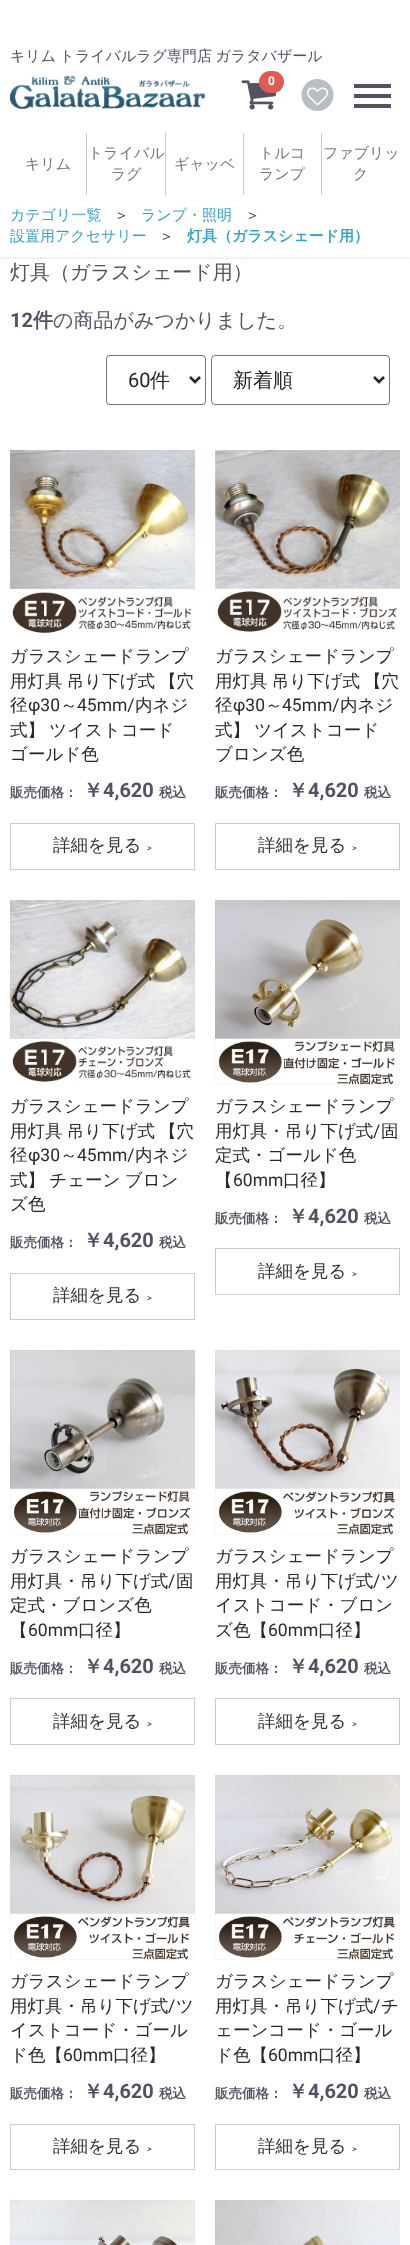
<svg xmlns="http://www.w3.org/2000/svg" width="410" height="2245">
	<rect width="100%" height="100%" fill="#FFFFFF" />
	<text x="10" y="61" word-spacing="-1" font-family="WenQuanYi Zen Hei" font-size="15" font-weight="500" fill="#525263">キリム トライバルラグ専門店 ガラタバザール</text>
	<image x="10" y="75" width="195" height="34" href="assets/img1.png" />
	<image x="241" y="80" width="35" height="30" href="assets/img2.png" />
	<rect x="259" y="71" width="25" height="22" rx="11" fill="#DE5D50" />
	<text x="268" y="85" font-family="Roboto" font-size="12" font-weight="700" fill="#FFFFFF">0</text>
	<image x="301" y="79" width="33" height="32" href="assets/img3.png" />
	<rect x="354" y="94" width="37" height="4" fill="#525263" />
	<rect x="354" y="84" width="37" height="4" fill="#525263" />
	<rect x="354" y="104" width="37" height="4" fill="#525263" />
	<rect x="86" y="133" width="1" height="62" fill="#CCCCCC" />
	<text x="25" y="169" font-family="WenQuanYi Zen Hei" font-size="15" font-weight="500" fill="#777777">キリム</text>
	<rect x="165" y="133" width="1" height="62" fill="#CCCCCC" />
	<g font-family="WenQuanYi Zen Hei" font-size="15" font-weight="500" fill="#777777">
		<text x="88" y="158">トライバル</text>
		<text x="111" y="179">ラグ</text>
	</g>
	<rect x="243" y="133" width="1" height="62" fill="#CCCCCC" />
	<text x="174" y="169" font-family="WenQuanYi Zen Hei" font-size="15" font-weight="500" fill="#777777">ギャッベ</text>
	<rect x="321" y="133" width="1" height="62" fill="#CCCCCC" />
	<g font-family="WenQuanYi Zen Hei" font-size="15" font-weight="500" fill="#777777">
		<text x="259" y="158">トルコ</text>
		<text x="259" y="179">ランプ</text>
		<text x="323" y="158">ファブリッ</text>
		<text x="353" y="179">ク</text>
	</g>
	<path d="M0 258H410" fill="none" stroke="#CCCCCC" stroke-width="1.2" stroke-dasharray="1.25 1.25" />
	<text x="10" y="220" font-family="WenQuanYi Zen Hei" font-size="15" font-weight="500" fill="#37A2C9">カテゴリ一覧</text>
	<text x="114" y="220" font-family="WenQuanYi Zen Hei" font-size="15" font-weight="500" fill="#333333">＞</text>
	<text x="141" y="220" font-family="WenQuanYi Zen Hei" font-size="15" font-weight="500" fill="#37A2C9">ランプ・照明</text>
	<text x="245" y="220" font-family="WenQuanYi Zen Hei" font-size="15" font-weight="500" fill="#333333">＞</text>
	<text x="10" y="241" font-family="WenQuanYi Zen Hei" font-size="15" font-weight="500" fill="#37A2C9">設置用アクセサリー</text>
	<text x="159" y="241" font-family="WenQuanYi Zen Hei" font-size="15" font-weight="500" fill="#333333">＞</text>
	<text x="187" y="241" font-family="WenQuanYi Zen Hei" font-size="15" font-weight="700" fill="#37A2C9">灯具（ガラスシェード用）</text>
	<text x="10" y="279" font-family="WenQuanYi Zen Hei" font-size="20" font-weight="500" fill="#525263">灯具（ガラスシェード用）</text>
	<text x="10" y="327" font-family="Roboto" font-size="20" font-weight="700" fill="#525263">12</text>
	<text x="33" y="327" font-family="WenQuanYi Zen Hei" font-size="20" font-weight="700" fill="#525263">件</text>
	<text x="53" y="327" font-family="WenQuanYi Zen Hei" font-size="20" font-weight="500" fill="#525263">の商品がみつかりました。</text>
	<rect x="106.5" y="355.5" width="99" height="49" rx="3.5" fill="none" stroke="#767676" />
	<path d="M190 377L195 382L200 377" fill="none" stroke="#212529" stroke-width="2.5" />
	<text x="128" y="387" font-family="Roboto" font-size="20" fill="#212529">60</text>
	<text x="150" y="387" font-family="WenQuanYi Zen Hei" font-size="20" font-weight="500" fill="#212529">件</text>
	<rect x="211.5" y="355.5" width="178" height="49" rx="3.5" fill="none" stroke="#767676" />
	<path d="M374 377L379 382L384 377" fill="none" stroke="#212529" stroke-width="2.5" />
	<text x="233" y="387" font-family="WenQuanYi Zen Hei" font-size="20" font-weight="500" fill="#212529">新着順</text>
	<image x="10" y="450" width="185" height="183" href="assets/img4.png" />
	<g font-family="WenQuanYi Zen Hei" font-size="17.5" font-weight="500" fill="#292929">
		<text x="10" y="662">ガラスシェードランプ</text>
		<text x="10" y="687" word-spacing="-1">用灯具 吊り下げ式</text>
		<text x="159" y="687">【穴</text>
		<text x="10" y="711">径</text>
	</g>
	<text x="28" y="711" font-family="Roboto" font-size="17.5" fill="#292929">φ30</text>
	<text x="60" y="711" font-family="WenQuanYi Zen Hei" font-size="17.5" font-weight="500" fill="#292929">～</text>
	<text x="77" y="711" font-family="Roboto" font-size="17.5" fill="#292929">45mm/</text>
	<g font-family="WenQuanYi Zen Hei" font-size="17.5" font-weight="500" fill="#292929">
		<text x="135" y="711">内ネジ</text>
		<text x="10" y="736" word-spacing="-1">式】 ツイストコード</text>
		<text x="10" y="760">ゴールド色</text>
	</g>
	<text x="10" y="797" font-family="WenQuanYi Zen Hei" font-size="13.5" font-weight="700" fill="#525263">販売価格：</text>
	<text x="83" y="797" font-family="WenQuanYi Zen Hei" font-size="20" font-weight="700" fill="#525263">￥</text>
	<text x="103" y="797" font-family="Roboto" font-size="20" font-weight="700" fill="#525263">4,620</text>
	<text x="159" y="797" font-family="WenQuanYi Zen Hei" font-size="13.5" font-weight="700" fill="#525263">税込</text>
	<rect x="10.5" y="823.5" width="184" height="46" fill="none" stroke="#CCCCCC" />
	<text x="53" y="851" font-family="WenQuanYi Zen Hei" font-size="17.5" font-weight="500" fill="#333333">詳細を見る</text>
	<text x="147" y="851" font-family="Roboto" font-size="9" fill="#333333">&gt;</text>
	<image x="215" y="450" width="185" height="182" href="assets/img5.png" />
	<g font-family="WenQuanYi Zen Hei" font-size="17.5" font-weight="500" fill="#292929">
		<text x="215" y="662">ガラスシェードランプ</text>
		<text x="215" y="687" word-spacing="-1">用灯具 吊り下げ式</text>
		<text x="364" y="687">【穴</text>
		<text x="215" y="711">径</text>
	</g>
	<text x="233" y="711" font-family="Roboto" font-size="17.5" fill="#292929">φ30</text>
	<text x="265" y="711" font-family="WenQuanYi Zen Hei" font-size="17.5" font-weight="500" fill="#292929">～</text>
	<text x="282" y="711" font-family="Roboto" font-size="17.5" fill="#292929">45mm/</text>
	<g font-family="WenQuanYi Zen Hei" font-size="17.5" font-weight="500" fill="#292929">
		<text x="340" y="711">内ネジ</text>
		<text x="215" y="736" word-spacing="-1">式】 ツイストコード</text>
		<text x="215" y="760">ブロンズ色</text>
	</g>
	<text x="215" y="797" font-family="WenQuanYi Zen Hei" font-size="13.5" font-weight="700" fill="#525263">販売価格：</text>
	<text x="288" y="797" font-family="WenQuanYi Zen Hei" font-size="20" font-weight="700" fill="#525263">￥</text>
	<text x="308" y="797" font-family="Roboto" font-size="20" font-weight="700" fill="#525263">4,620</text>
	<text x="364" y="797" font-family="WenQuanYi Zen Hei" font-size="13.5" font-weight="700" fill="#525263">税込</text>
	<rect x="215.5" y="823.5" width="184" height="46" fill="none" stroke="#CCCCCC" />
	<text x="258" y="851" font-family="WenQuanYi Zen Hei" font-size="17.5" font-weight="500" fill="#333333">詳細を見る</text>
	<text x="352" y="851" font-family="Roboto" font-size="9" fill="#333333">&gt;</text>
	<image x="10" y="900" width="185" height="182" href="assets/img6.png" />
	<g font-family="WenQuanYi Zen Hei" font-size="17.5" font-weight="500" fill="#292929">
		<text x="10" y="1112">ガラスシェードランプ</text>
		<text x="10" y="1137" word-spacing="-1">用灯具 吊り下げ式</text>
		<text x="159" y="1137">【穴</text>
		<text x="10" y="1161">径</text>
	</g>
	<text x="28" y="1161" font-family="Roboto" font-size="17.5" fill="#292929">φ30</text>
	<text x="60" y="1161" font-family="WenQuanYi Zen Hei" font-size="17.5" font-weight="500" fill="#292929">～</text>
	<text x="77" y="1161" font-family="Roboto" font-size="17.5" fill="#292929">45mm/</text>
	<g font-family="WenQuanYi Zen Hei" font-size="17.5" font-weight="500" fill="#292929">
		<text x="135" y="1161">内ネジ</text>
		<text x="10" y="1186" word-spacing="-1">式】 チェーン ブロン</text>
		<text x="10" y="1210">ズ色</text>
	</g>
	<text x="10" y="1247" font-family="WenQuanYi Zen Hei" font-size="13.5" font-weight="700" fill="#525263">販売価格：</text>
	<text x="83" y="1247" font-family="WenQuanYi Zen Hei" font-size="20" font-weight="700" fill="#525263">￥</text>
	<text x="103" y="1247" font-family="Roboto" font-size="20" font-weight="700" fill="#525263">4,620</text>
	<text x="159" y="1247" font-family="WenQuanYi Zen Hei" font-size="13.5" font-weight="700" fill="#525263">税込</text>
	<rect x="10.5" y="1273.5" width="184" height="46" fill="none" stroke="#CCCCCC" />
	<text x="53" y="1301" font-family="WenQuanYi Zen Hei" font-size="17.5" font-weight="500" fill="#333333">詳細を見る</text>
	<text x="147" y="1301" font-family="Roboto" font-size="9" fill="#333333">&gt;</text>
	<image x="215" y="900" width="185" height="185" href="assets/img7.png" />
	<g font-family="WenQuanYi Zen Hei" font-size="17.5" font-weight="500" fill="#292929">
		<text x="215" y="1112">ガラスシェードランプ</text>
		<text x="215" y="1137">用灯具・吊り下げ式</text>
	</g>
	<text x="373" y="1137" font-family="Roboto" font-size="17.5" fill="#292929">/</text>
	<g font-family="WenQuanYi Zen Hei" font-size="17.5" font-weight="500" fill="#292929">
		<text x="381" y="1137">固</text>
		<text x="215" y="1161">定式・ゴールド色</text>
		<text x="215" y="1186">【</text>
	</g>
	<text x="233" y="1186" font-family="Roboto" font-size="17.5" fill="#292929">60mm</text>
	<text x="283" y="1186" font-family="WenQuanYi Zen Hei" font-size="17.5" font-weight="500" fill="#292929">口径】</text>
	<text x="215" y="1223" font-family="WenQuanYi Zen Hei" font-size="13.5" font-weight="700" fill="#525263">販売価格：</text>
	<text x="288" y="1223" font-family="WenQuanYi Zen Hei" font-size="20" font-weight="700" fill="#525263">￥</text>
	<text x="308" y="1223" font-family="Roboto" font-size="20" font-weight="700" fill="#525263">4,620</text>
	<text x="364" y="1223" font-family="WenQuanYi Zen Hei" font-size="13.5" font-weight="700" fill="#525263">税込</text>
	<rect x="215.5" y="1248.5" width="184" height="46" fill="none" stroke="#CCCCCC" />
	<text x="258" y="1277" font-family="WenQuanYi Zen Hei" font-size="17.5" font-weight="500" fill="#333333">詳細を見る</text>
	<text x="352" y="1277" font-family="Roboto" font-size="9" fill="#333333">&gt;</text>
	<image x="10" y="1350" width="185" height="185" href="assets/img8.png" />
	<g font-family="WenQuanYi Zen Hei" font-size="17.5" font-weight="500" fill="#292929">
		<text x="10" y="1562">ガラスシェードランプ</text>
		<text x="10" y="1587">用灯具・吊り下げ式</text>
	</g>
	<text x="168" y="1587" font-family="Roboto" font-size="17.5" fill="#292929">/</text>
	<g font-family="WenQuanYi Zen Hei" font-size="17.5" font-weight="500" fill="#292929">
		<text x="176" y="1587">固</text>
		<text x="10" y="1611">定式・ブロンズ色</text>
		<text x="10" y="1636">【</text>
	</g>
	<text x="28" y="1636" font-family="Roboto" font-size="17.5" fill="#292929">60mm</text>
	<text x="78" y="1636" font-family="WenQuanYi Zen Hei" font-size="17.5" font-weight="500" fill="#292929">口径】</text>
	<text x="10" y="1673" font-family="WenQuanYi Zen Hei" font-size="13.5" font-weight="700" fill="#525263">販売価格：</text>
	<text x="83" y="1673" font-family="WenQuanYi Zen Hei" font-size="20" font-weight="700" fill="#525263">￥</text>
	<text x="103" y="1673" font-family="Roboto" font-size="20" font-weight="700" fill="#525263">4,620</text>
	<text x="159" y="1673" font-family="WenQuanYi Zen Hei" font-size="13.5" font-weight="700" fill="#525263">税込</text>
	<rect x="10.5" y="1698.5" width="184" height="46" fill="none" stroke="#CCCCCC" />
	<text x="53" y="1727" font-family="WenQuanYi Zen Hei" font-size="17.5" font-weight="500" fill="#333333">詳細を見る</text>
	<text x="147" y="1727" font-family="Roboto" font-size="9" fill="#333333">&gt;</text>
	<image x="215" y="1350" width="185" height="185" href="assets/img9.png" />
	<g font-family="WenQuanYi Zen Hei" font-size="17.5" font-weight="500" fill="#292929">
		<text x="215" y="1562">ガラスシェードランプ</text>
		<text x="215" y="1587">用灯具・吊り下げ式</text>
	</g>
	<text x="373" y="1587" font-family="Roboto" font-size="17.5" fill="#292929">/</text>
	<g font-family="WenQuanYi Zen Hei" font-size="17.5" font-weight="500" fill="#292929">
		<text x="381" y="1587">ツ</text>
		<text x="215" y="1611">イストコード・ブロン</text>
		<text x="215" y="1636">ズ色【</text>
	</g>
	<text x="268" y="1636" font-family="Roboto" font-size="17.5" fill="#292929">60mm</text>
	<text x="318" y="1636" font-family="WenQuanYi Zen Hei" font-size="17.5" font-weight="500" fill="#292929">口径】</text>
	<text x="215" y="1673" font-family="WenQuanYi Zen Hei" font-size="13.5" font-weight="700" fill="#525263">販売価格：</text>
	<text x="288" y="1673" font-family="WenQuanYi Zen Hei" font-size="20" font-weight="700" fill="#525263">￥</text>
	<text x="308" y="1673" font-family="Roboto" font-size="20" font-weight="700" fill="#525263">4,620</text>
	<text x="364" y="1673" font-family="WenQuanYi Zen Hei" font-size="13.5" font-weight="700" fill="#525263">税込</text>
	<rect x="215.5" y="1698.5" width="184" height="46" fill="none" stroke="#CCCCCC" />
	<text x="258" y="1727" font-family="WenQuanYi Zen Hei" font-size="17.5" font-weight="500" fill="#333333">詳細を見る</text>
	<text x="352" y="1727" font-family="Roboto" font-size="9" fill="#333333">&gt;</text>
	<image x="10" y="1775" width="185" height="185" href="assets/img10.png" />
	<g font-family="WenQuanYi Zen Hei" font-size="17.5" font-weight="500" fill="#292929">
		<text x="10" y="1987">ガラスシェードランプ</text>
		<text x="10" y="2012">用灯具・吊り下げ式</text>
	</g>
	<text x="168" y="2012" font-family="Roboto" font-size="17.5" fill="#292929">/</text>
	<g font-family="WenQuanYi Zen Hei" font-size="17.5" font-weight="500" fill="#292929">
		<text x="176" y="2012">ツ</text>
		<text x="10" y="2036">イストコード・ゴール</text>
		<text x="10" y="2061">ド色【</text>
	</g>
	<text x="63" y="2061" font-family="Roboto" font-size="17.5" fill="#292929">60mm</text>
	<text x="113" y="2061" font-family="WenQuanYi Zen Hei" font-size="17.5" font-weight="500" fill="#292929">口径】</text>
	<text x="10" y="2098" font-family="WenQuanYi Zen Hei" font-size="13.5" font-weight="700" fill="#525263">販売価格：</text>
	<text x="83" y="2098" font-family="WenQuanYi Zen Hei" font-size="20" font-weight="700" fill="#525263">￥</text>
	<text x="103" y="2098" font-family="Roboto" font-size="20" font-weight="700" fill="#525263">4,620</text>
	<text x="159" y="2098" font-family="WenQuanYi Zen Hei" font-size="13.5" font-weight="700" fill="#525263">税込</text>
	<rect x="10.5" y="2124.5" width="184" height="45" fill="none" stroke="#CCCCCC" />
	<text x="53" y="2152" font-family="WenQuanYi Zen Hei" font-size="17.5" font-weight="500" fill="#333333">詳細を見る</text>
	<text x="147" y="2152" font-family="Roboto" font-size="9" fill="#333333">&gt;</text>
	<image x="215" y="1775" width="185" height="185" href="assets/img11.png" />
	<g font-family="WenQuanYi Zen Hei" font-size="17.5" font-weight="500" fill="#292929">
		<text x="215" y="1987">ガラスシェードランプ</text>
		<text x="215" y="2012">用灯具・吊り下げ式</text>
	</g>
	<text x="373" y="2012" font-family="Roboto" font-size="17.5" fill="#292929">/</text>
	<g font-family="WenQuanYi Zen Hei" font-size="17.5" font-weight="500" fill="#292929">
		<text x="381" y="2012">チ</text>
		<text x="215" y="2036">ェーンコード・ゴール</text>
		<text x="215" y="2061">ド色【</text>
	</g>
	<text x="268" y="2061" font-family="Roboto" font-size="17.5" fill="#292929">60mm</text>
	<text x="318" y="2061" font-family="WenQuanYi Zen Hei" font-size="17.5" font-weight="500" fill="#292929">口径】</text>
	<text x="215" y="2098" font-family="WenQuanYi Zen Hei" font-size="13.5" font-weight="700" fill="#525263">販売価格：</text>
	<text x="288" y="2098" font-family="WenQuanYi Zen Hei" font-size="20" font-weight="700" fill="#525263">￥</text>
	<text x="308" y="2098" font-family="Roboto" font-size="20" font-weight="700" fill="#525263">4,620</text>
	<text x="364" y="2098" font-family="WenQuanYi Zen Hei" font-size="13.5" font-weight="700" fill="#525263">税込</text>
	<rect x="215.5" y="2124.5" width="184" height="45" fill="none" stroke="#CCCCCC" />
	<text x="258" y="2152" font-family="WenQuanYi Zen Hei" font-size="17.5" font-weight="500" fill="#333333">詳細を見る</text>
	<text x="352" y="2152" font-family="Roboto" font-size="9" fill="#333333">&gt;</text>
	<image x="10" y="2200" width="185" height="45" href="assets/img12.png" />
	<image x="215" y="2200" width="185" height="45" href="assets/img13.png" />
</svg>
